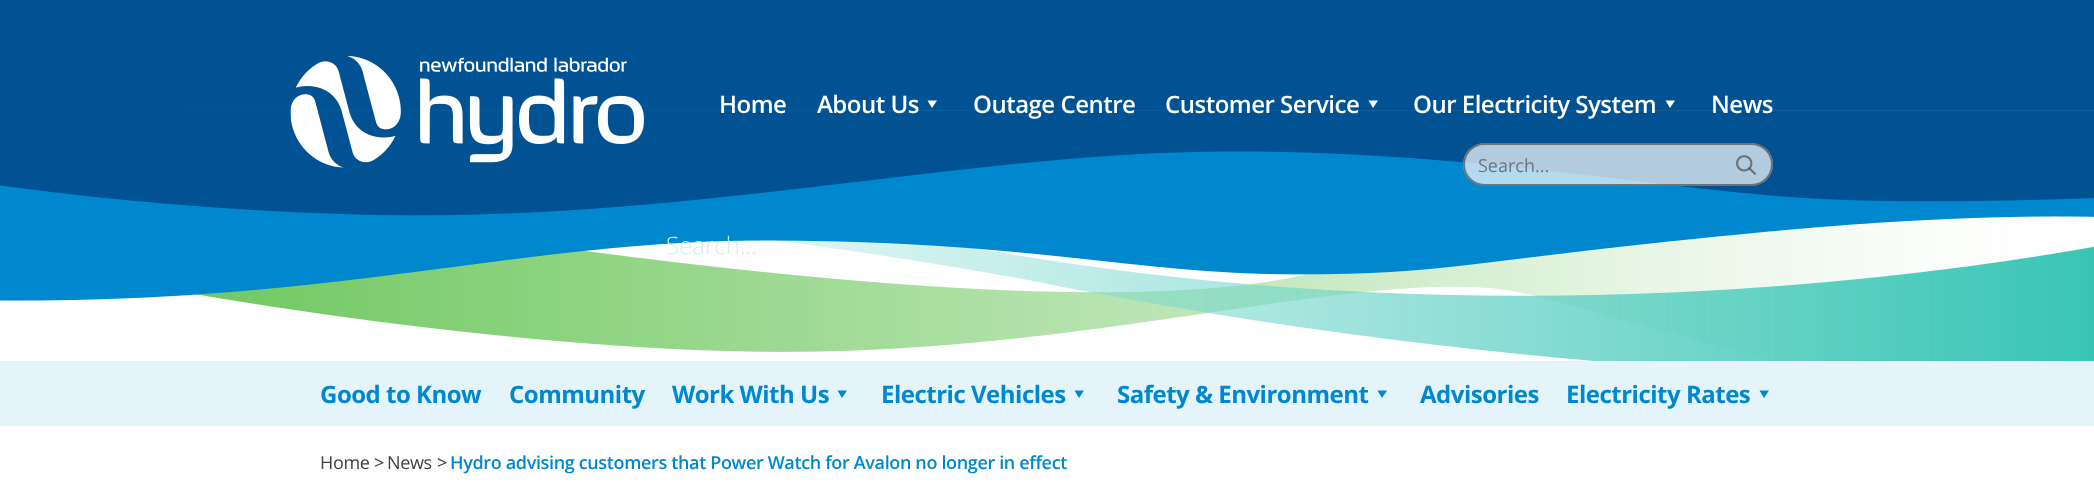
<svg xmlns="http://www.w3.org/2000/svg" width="2094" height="496">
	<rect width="100%" height="100%" fill="#FFFFFF" />
	<rect x="0" y="0" width="2094" height="110" fill="#005293" />
	<image x="0" y="110" width="2094" height="251" href="assets/img3.png" />
	<image x="290" y="56" width="354" height="112" href="assets/img1.png" />
	<g font-family="Open Sans" font-size="24" font-weight="600" letter-spacing="-0.5" fill="#FFFFFF">
		<text x="719" y="113">Home</text>
		<text x="817" y="113">About Us</text>
	</g>
	<path d="M937 100.5L932 108L927.5 100.5Z" fill="#FFFFFF" />
	<g font-family="Open Sans" font-size="24" font-weight="600" letter-spacing="-0.5" fill="#FFFFFF">
		<text x="973" y="113">Outage Centre</text>
		<text x="1165" y="113">Customer Service</text>
	</g>
	<path d="M1378 100.5L1373 108L1368.5 100.5Z" fill="#FFFFFF" />
	<text x="1413" y="113" font-family="Open Sans" font-size="24" font-weight="600" letter-spacing="-0.5" fill="#FFFFFF">Our Electricity System</text>
	<path d="M1675 100.5L1670 108L1665.5 100.5Z" fill="#FFFFFF" />
	<text x="1711" y="113" font-family="Open Sans" font-size="24" font-weight="600" letter-spacing="-0.5" fill="#FFFFFF">News</text>
	<rect x="1463" y="143" width="310" height="43" rx="21.5" fill="#FFFFFF" fill-opacity="0.7" />
	<rect x="1464" y="144" width="308" height="41" rx="20.5" fill="none" stroke="#4D4D4D" stroke-opacity="0.7" stroke-width="2" />
	<text x="1478" y="172" font-family="Open Sans" font-size="18" fill="#6B767C">Search...</text>
	<image x="1736" y="155" width="20" height="20" href="assets/img2.png" />
	<text x="666" y="254" font-family="Open Sans" font-size="24" font-weight="300" fill="#D4EBF7">Search...</text>
	<rect x="0" y="361" width="2094" height="65" fill="#E5F3FA" />
	<g font-family="Open Sans" font-size="24" font-weight="700" letter-spacing="-0.5" fill="#0088CE">
		<text x="320" y="403">Good to Know</text>
		<text x="509" y="403">Community</text>
		<text x="672" y="403">Work With Us</text>
	</g>
	<path d="M847 390.5L842 398L837.5 390.5Z" fill="#0088CE" />
	<text x="881" y="403" font-family="Open Sans" font-size="24" font-weight="700" letter-spacing="-0.5" fill="#0088CE">Electric Vehicles</text>
	<path d="M1084 390.5L1079 398L1074.5 390.5Z" fill="#0088CE" />
	<text x="1117" y="403" font-family="Open Sans" font-size="24" font-weight="700" letter-spacing="-0.5" fill="#0088CE">Safety &amp; Environment</text>
	<path d="M1387 390.5L1382 398L1377.5 390.5Z" fill="#0088CE" />
	<g font-family="Open Sans" font-size="24" font-weight="700" letter-spacing="-0.5" fill="#0088CE">
		<text x="1420" y="403">Advisories</text>
		<text x="1566" y="403">Electricity Rates</text>
	</g>
	<path d="M1769 390.5L1764 398L1759.5 390.5Z" fill="#0088CE" />
	<g font-family="Open Sans" font-size="18" letter-spacing="-0.35" fill="#404040">
		<text x="320" y="469">Home</text>
		<text x="374" y="469">&gt;</text>
		<text x="387" y="469">News</text>
		<text x="437" y="469">&gt;</text>
	</g>
	<text x="450" y="469" font-family="Open Sans" font-size="18" font-weight="600" letter-spacing="-0.35" fill="#0088CE">Hydro advising customers that Power Watch for Avalon no longer in effect</text>
</svg>
